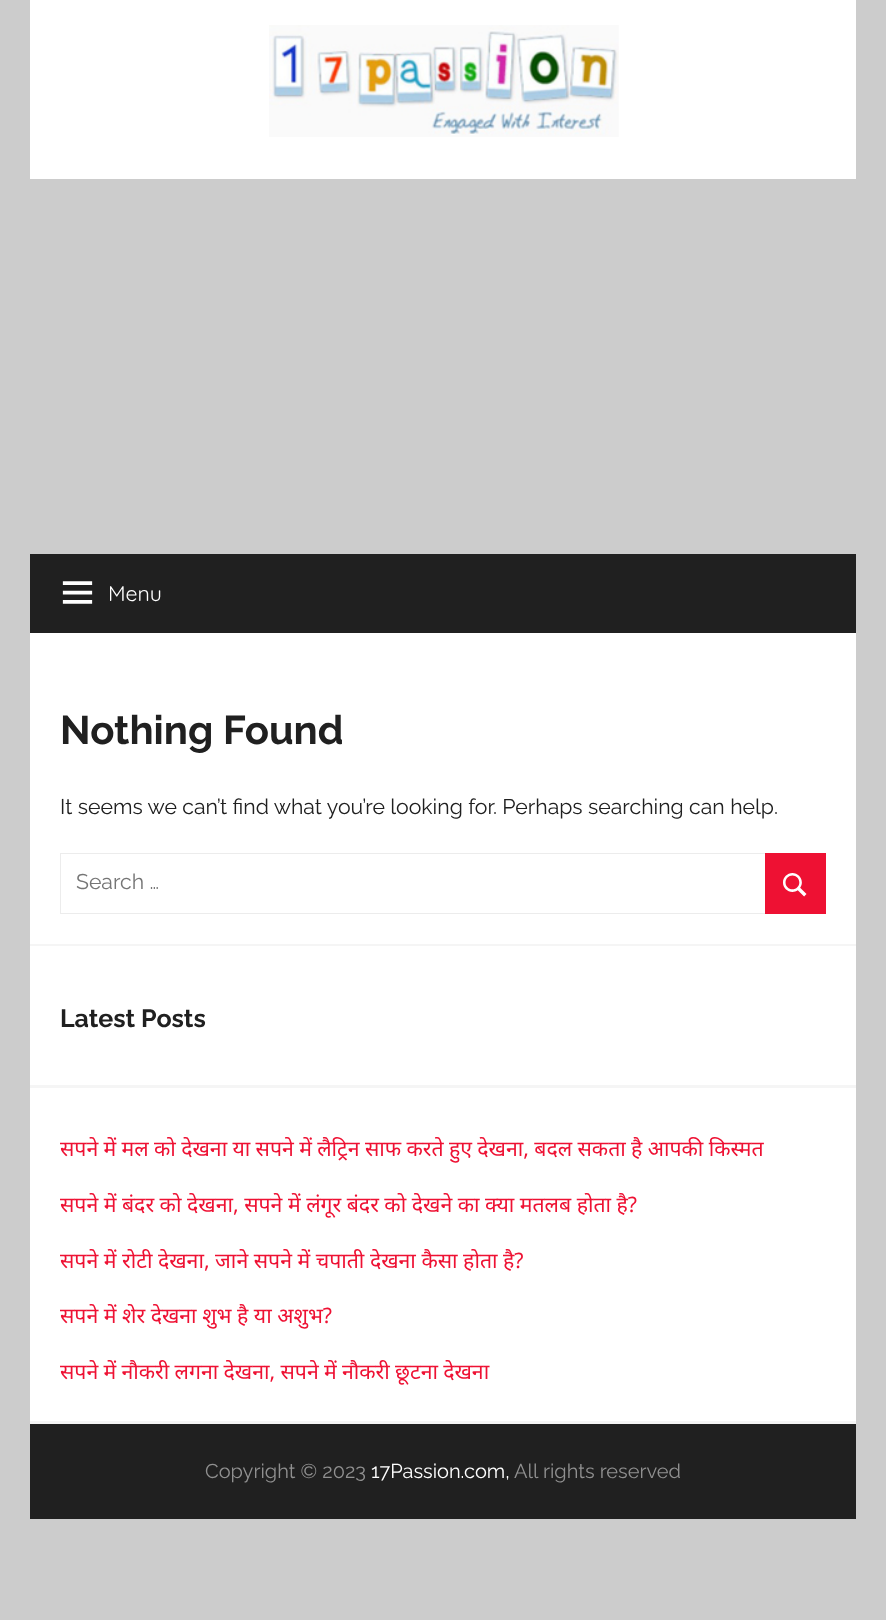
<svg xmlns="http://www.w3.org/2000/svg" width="886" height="1620">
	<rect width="100%" height="100%" fill="#CCCCCC" />
	<rect x="30" y="0" width="826" height="179" fill="#FFFFFF" />
	<image x="269" y="25" width="350" height="112" href="assets/img1.png" />
	<rect x="30" y="554" width="826" height="79" fill="#202020" />
	<image x="62" y="581" width="31" height="23" href="assets/img2.png" />
	<text x="108" y="601" font-family="Quicksand" font-size="21.25" fill="#FFFFFF">Menu</text>
	<rect x="30" y="633" width="826" height="311" fill="#FFFFFF" />
	<rect x="30" y="944" width="826" height="2" fill="#F5F5F5" />
	<text x="60" y="744" font-family="Raleway" font-size="40" font-weight="700" fill="#202020">Nothing Found</text>
	<text x="60" y="814" font-family="Raleway" font-size="21.25" fill="#202020">It seems we can’t find what you’re looking for. Perhaps searching can help.</text>
	<rect x="60.5" y="853.5" width="765" height="60" fill="none" stroke="#ECECEC" />
	<text x="76" y="889" font-family="Raleway" font-size="21.25" fill="#757575">Search …</text>
	<rect x="765" y="853" width="61" height="61" fill="#EE1133" />
	<image x="783" y="873" width="24" height="24" href="assets/img3.png" />
	<rect x="30" y="946" width="826" height="139" fill="#FFFFFF" />
	<rect x="30" y="1085" width="826" height="3" fill="#F5F5F5" />
	<text x="60" y="1027" font-family="Raleway" font-size="25" font-weight="700" fill="#202020">Latest Posts</text>
	<rect x="30" y="1088" width="826" height="333" fill="#FFFFFF" />
	<rect x="30" y="1421" width="826" height="3" fill="#F5F5F5" />
	<g font-family="Noto Sans" font-size="21.25" fill="#EE1133">
		<text x="60" y="1156" word-spacing="-0.2">सपने में मल को देखना या सपने में लैट्रिन साफ करते हुए देखना, बदल सकता है आपकी किस्मत</text>
		<text x="60" y="1212">सपने में बंदर को देखना, सपने में लंगूर बंदर को देखने का क्या मतलब होता है?</text>
		<text x="60" y="1268">सपने में रोटी देखना, जाने सपने में चपाती देखना कैसा होता है?</text>
		<text x="60" y="1323">सपने में शेर देखना शुभ है या अशुभ?</text>
		<text x="60" y="1379" word-spacing="-0.25">सपने में नौकरी लगना देखना, सपने में नौकरी छूटना देखना</text>
	</g>
	<rect x="30" y="1424" width="826" height="95" fill="#202020" />
	<text x="205" y="1478" font-family="Raleway" font-size="20" fill="#909090">Copyright © 2023</text>
	<text x="371" y="1478" font-family="Raleway" font-size="20" fill="#FFFFFF">17Passion.com,</text>
	<text x="514" y="1478" font-family="Raleway" font-size="20" fill="#909090">All rights reserved</text>
</svg>
